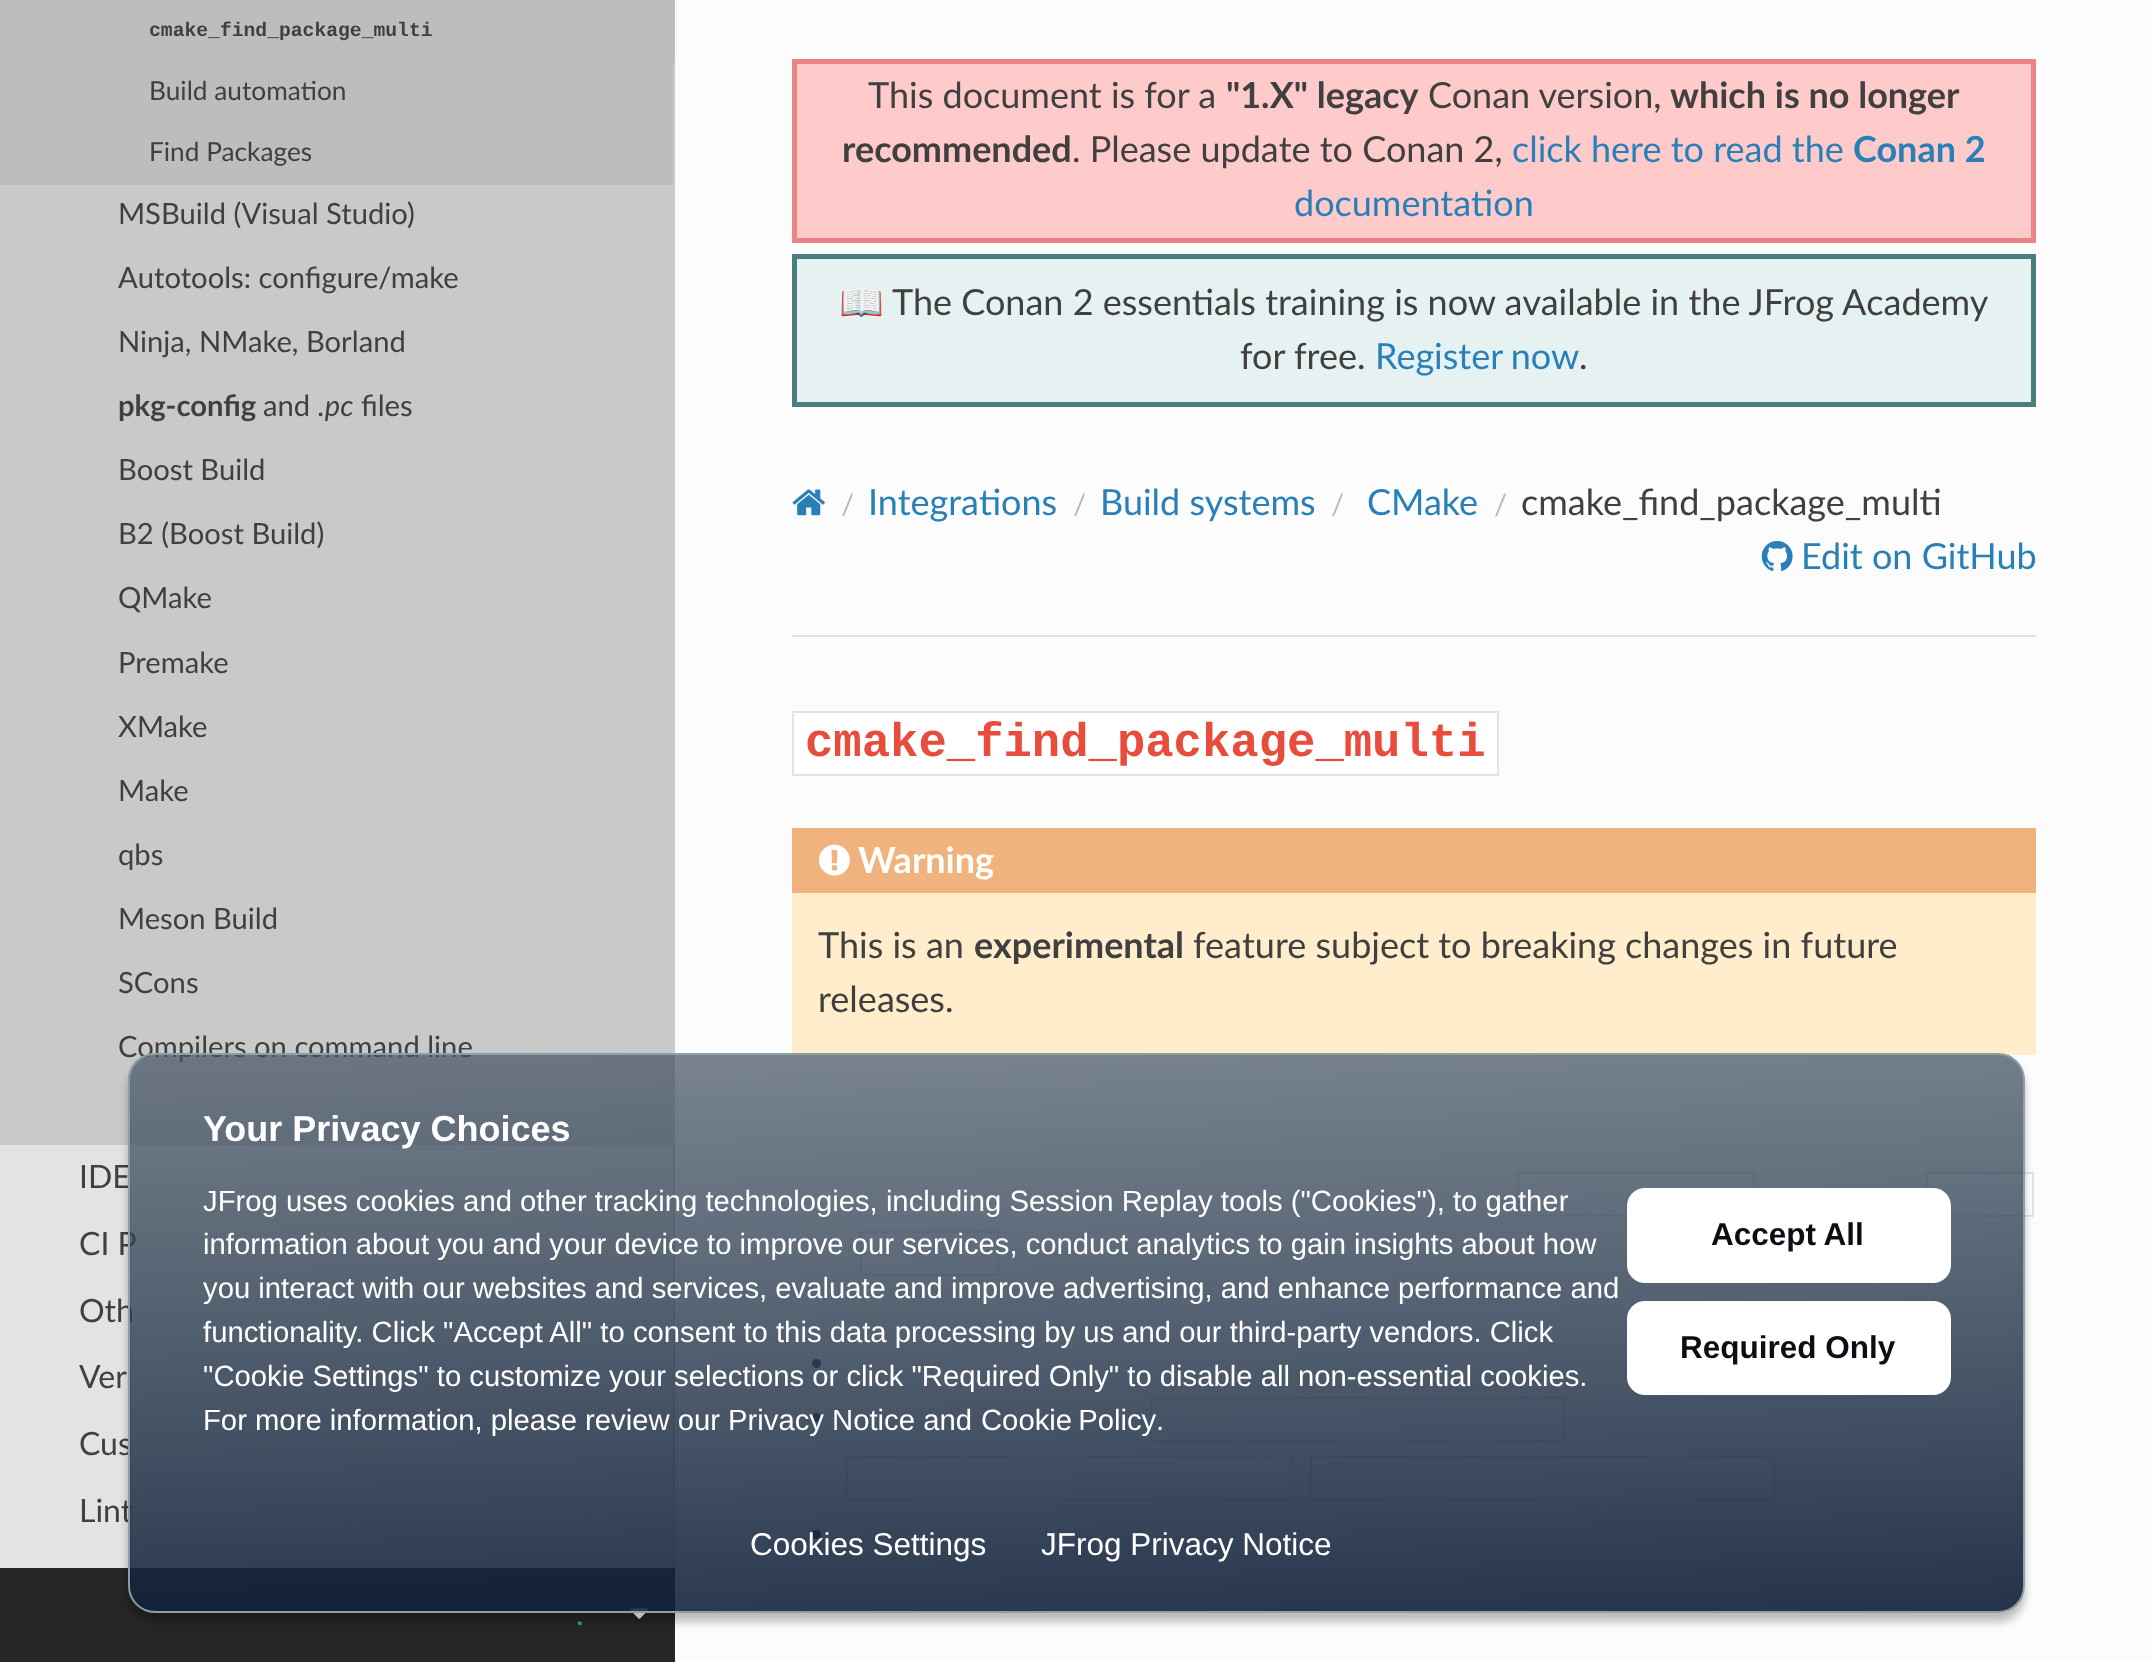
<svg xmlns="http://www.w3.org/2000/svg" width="2153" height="1662">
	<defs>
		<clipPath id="clip1"><path d="M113 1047H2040V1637H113ZM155 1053H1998C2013 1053 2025 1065 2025 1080V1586C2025 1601 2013 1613 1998 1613H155C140 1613 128 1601 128 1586V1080C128 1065 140 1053 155 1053Z" clip-rule="evenodd" /></clipPath>
		<clipPath id="clip2"><rect x="128" y="1053" width="1897" height="560" rx="27" /></clipPath>
		<linearGradient id="g1" gradientUnits="userSpaceOnUse" x1="-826" y1="1023" x2="-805" y2="1644"><stop offset="0" stop-color="#435363" stop-opacity="0.7" /><stop offset="1" stop-color="#0C1D37" stop-opacity="0.9" /></linearGradient>
		<linearGradient id="g2" gradientUnits="userSpaceOnUse" x1="1066" y1="1023" x2="1087" y2="1644"><stop offset="0" stop-color="#435363" stop-opacity="0.7" /><stop offset="1" stop-color="#0C1D37" stop-opacity="0.9" /></linearGradient>
	</defs>
	<rect width="100%" height="100%" fill="#FCFCFC" />
	<rect x="0" y="1145" width="673" height="423" fill="#E3E3E3" />
	<rect x="0" y="0" width="675" height="63" fill="#BDBDBD" />
	<text x="149" y="36" font-family="Liberation Mono" font-size="19.7" font-weight="700" fill="#404040">cmake_find_package_multi</text>
	<rect x="0" y="63" width="673" height="122" fill="#BDBDBD" />
	<rect x="673" y="63" width="2" height="122" fill="#C9C9C9" />
	<g font-family="Lato" font-size="26.25" fill="#404040">
		<text x="149" y="100">Build automation</text>
		<text x="149" y="161">Find Packages</text>
	</g>
	<rect x="0" y="185" width="675" height="960" fill="#C9C9C9" />
	<g font-family="Lato" font-size="29.2" fill="#404040">
		<text x="118" y="224">MSBuild (Visual Studio)</text>
		<text x="118" y="288">Autotools: configure/make</text>
		<text x="118" y="352">Ninja, NMake, Borland</text>
	</g>
	<text x="118" y="416" font-family="Lato" font-size="29.2" font-weight="700" fill="#404040">pkg-config</text>
	<text x="263" y="416" font-family="Lato" font-size="29.2" fill="#404040">and</text>
	<text x="318" y="416" font-family="Lato" font-size="29.2" font-style="italic" fill="#404040">.pc</text>
	<g font-family="Lato" font-size="29.2" fill="#404040">
		<text x="361" y="416">files</text>
		<text x="118" y="480">Boost Build</text>
		<text x="118" y="544">B2 (Boost Build)</text>
		<text x="118" y="608">QMake</text>
		<text x="118" y="673">Premake</text>
		<text x="118" y="737">XMake</text>
		<text x="118" y="801">Make</text>
		<text x="118" y="865">qbs</text>
		<text x="118" y="929">Meson Build</text>
		<text x="118" y="993">SCons</text>
		<text x="118" y="1057">Compilers on command line</text>
	</g>
	<rect x="673" y="1145" width="2" height="423" fill="#C9C9C9" />
	<g font-family="Lato" font-size="32" fill="#404040">
		<text x="79" y="1188">IDE</text>
		<text x="79" y="1255">CI P</text>
		<text x="79" y="1322">Oth</text>
		<text x="79" y="1388">Ver</text>
		<text x="79" y="1455">Cus</text>
		<text x="79" y="1522">Lint</text>
	</g>
	<rect x="794.5" y="61.5" width="1239" height="179" fill="#FFCACA" stroke="#EB8484" stroke-width="5" />
	<text x="868" y="108" font-family="Lato" font-size="36" fill="#404040">This document is for a</text>
	<text x="1226" y="108" font-family="Lato" font-size="36" font-weight="700" fill="#404040">"1.X" legacy</text>
	<text x="1428" y="108" font-family="Lato" font-size="36" fill="#404040">Conan version,</text>
	<g font-family="Lato" font-size="36" font-weight="700" fill="#404040">
		<text x="1670" y="108">which is no longer</text>
		<text x="842" y="162">recommended</text>
	</g>
	<text x="1072" y="162" font-family="Lato" font-size="36" fill="#404040">. Please update to Conan 2,</text>
	<text x="1512" y="162" font-family="Lato" font-size="36" fill="#2980B9">click here to read the</text>
	<text x="1853" y="162" font-family="Lato" font-size="36" font-weight="700" fill="#2980B9">Conan 2</text>
	<text x="1294" y="216" font-family="Lato" font-size="36" fill="#2980B9">documentation</text>
	<rect x="794.5" y="256.5" width="1239" height="148" fill="#E6F2F2" stroke="#4A7D7E" stroke-width="5" />
	<text x="839" y="315" font-family="Noto Color Emoji" font-size="36" fill="#404040">📖</text>
	<g font-family="Lato" font-size="36" fill="#404040">
		<text x="892" y="315">The Conan 2 essentials training is now available in the JFrog Academy</text>
		<text x="1240" y="369">for free.</text>
	</g>
	<text x="1375" y="369" word-spacing="-1" font-family="Lato" font-size="36" fill="#2980B9">Register now</text>
	<text x="1579" y="369" font-family="Lato" font-size="36" fill="#404040">.</text>
	<image x="792" y="489" width="33" height="27" href="assets/img1.png" />
	<text x="841" y="515" font-family="Lato" font-size="29.25" fill="#BBBBBB">/</text>
	<text x="868" y="515" font-family="Lato" font-size="36" fill="#2980B9">Integrations</text>
	<text x="1073" y="515" font-family="Lato" font-size="29.25" fill="#BBBBBB">/</text>
	<text x="1100" y="515" font-family="Lato" font-size="36" fill="#2980B9">Build systems</text>
	<text x="1331" y="515" font-family="Lato" font-size="29.25" fill="#BBBBBB">/</text>
	<text x="1367" y="515" font-family="Lato" font-size="36" fill="#2980B9">CMake</text>
	<text x="1494" y="515" font-family="Lato" font-size="29.25" fill="#BBBBBB">/</text>
	<text x="1521" y="515" font-family="Lato" font-size="36" fill="#404040">cmake_find_package_multi</text>
	<image x="1761" y="541" width="32" height="31" href="assets/img2.png" />
	<text x="1801" y="569" font-family="Lato" font-size="36" fill="#2980B9">Edit on GitHub</text>
	<rect x="792" y="635" width="1244" height="2" fill="#E1E4E5" />
	<rect x="793" y="712" width="705" height="63" fill="#FFFFFF" stroke="#E1E4E5" stroke-width="2" />
	<text x="805" y="756" font-family="Liberation Mono" font-size="47.25" font-weight="700" fill="#E74C3C">cmake_find_package_multi</text>
	<rect x="792" y="893" width="1244" height="162" fill="#FFEDCC" />
	<rect x="792" y="828" width="1244" height="65" fill="#F0B37E" />
	<image x="819" y="844" width="31" height="32" href="assets/img3.png" />
	<text x="858" y="873" font-family="Lato" font-size="36" font-weight="700" fill="#FFFFFF">Warning</text>
	<text x="818" y="958" font-family="Lato" font-size="36" fill="#404040">This is an</text>
	<text x="974" y="958" font-family="Lato" font-size="36" font-weight="700" fill="#404040">experimental</text>
	<g font-family="Lato" font-size="36" fill="#404040">
		<text x="1193" y="958">feature subject to breaking changes in future</text>
		<text x="818" y="1012">releases.</text>
	</g>
	<rect x="1517" y="1172" width="238" height="2" fill="#E1E4E5" />
	<rect x="1517" y="1215" width="112" height="2" fill="#E1E4E5" />
	<rect x="1517" y="1172" width="2" height="45" fill="#E1E4E5" />
	<rect x="1519" y="1174" width="110" height="41" fill="#FFFFFF" />
	<rect x="1629" y="1174" width="16" height="24" fill="#FFFFFF" />
	<rect x="1645" y="1174" width="108" height="14" fill="#FFFFFF" />
	<rect x="1753" y="1172" width="2" height="16" fill="#E1E4E5" />
	<rect x="1927" y="1173" width="106" height="43" fill="#FFFFFF" stroke="#E1E4E5" stroke-width="2" />
	<rect x="861" y="1232" width="137" height="43" fill="#FFFFFF" stroke="#E1E4E5" stroke-width="2" />
	<circle cx="816.5" cy="1363.5" r="4.5" fill="#404040" />
	<circle cx="816.5" cy="1417.5" r="4.5" fill="#404040" />
	<rect x="1151" y="1398" width="414" height="43" fill="#FFFFFF" stroke="#E1E4E5" stroke-width="2" />
	<rect x="847" y="1457" width="446" height="43" fill="#FFFFFF" stroke="#E1E4E5" stroke-width="2" />
	<rect x="1311" y="1457" width="463" height="43" fill="#FFFFFF" stroke="#E1E4E5" stroke-width="2" />
	<circle cx="816.5" cy="1534.5" r="4.5" fill="#404040" />
	<rect x="0" y="1568" width="675" height="94" fill="#272525" />
	<image x="630" y="1608" width="19" height="11" href="assets/img4.png" />
	<text x="576" y="1625" font-family="Lato" font-size="32" fill="#27AE60">.</text>
	<g clip-path="url(#clip1)">
		<rect x="128" y="1062" width="1897" height="560" rx="27" fill="#000000" fill-opacity="0.25" filter="blur(4.5px)" />
	</g>
	<g clip-path="url(#clip2)">
		<rect x="128" y="1067" width="3" height="532" fill="url(#g1)" />
		<rect x="131" y="1055" width="1892" height="556" fill="url(#g2)" />
	</g>
	<rect x="129" y="1054" width="1895" height="558" rx="26" fill="none" stroke="#8C9FA4" stroke-width="2" />
	<text x="203" y="1141" font-family="Liberation Sans" font-size="36" font-weight="700" fill="#FFFFFF">Your Privacy Choices</text>
	<g font-family="Liberation Sans" font-size="29.25" fill="#FFFFFF">
		<text x="203" y="1211">JFrog uses cookies and other tracking technologies, including Session Replay tools ("Cookies"), to gather</text>
		<text x="203" y="1254">information about you and your device to improve our services, conduct analytics to gain insights about how</text>
		<text x="203" y="1298">you interact with our websites and services, evaluate and improve advertising, and enhance performance and</text>
		<text x="203" y="1342">functionality. Click "Accept All" to consent to this data processing by us and our third-party vendors. Click</text>
		<text x="203" y="1386">"Cookie Settings" to customize your selections or click "Required Only" to disable all non-essential cookies.</text>
		<text x="203" y="1430">For more information, please review our Privacy Notice and</text>
		<text x="981" y="1430" word-spacing="-2">Cookie Policy</text>
		<text x="1156" y="1430">.</text>
	</g>
	<rect x="1627" y="1188" width="324" height="95" rx="18" fill="#FFFFFF" />
	<text x="1711" y="1245" font-family="Liberation Sans" font-size="31.5" font-weight="700" fill="#0B0E12">Accept All</text>
	<rect x="1627" y="1301" width="324" height="94" rx="18" fill="#FFFFFF" />
	<text x="1680" y="1358" font-family="Liberation Sans" font-size="31.5" font-weight="700" fill="#0B0E12">Required Only</text>
	<g font-family="Liberation Sans" font-size="31.5" fill="#FFFFFF">
		<text x="750" y="1555">Cookies Settings</text>
		<text x="1041" y="1555">JFrog Privacy Notice</text>
	</g>
</svg>
